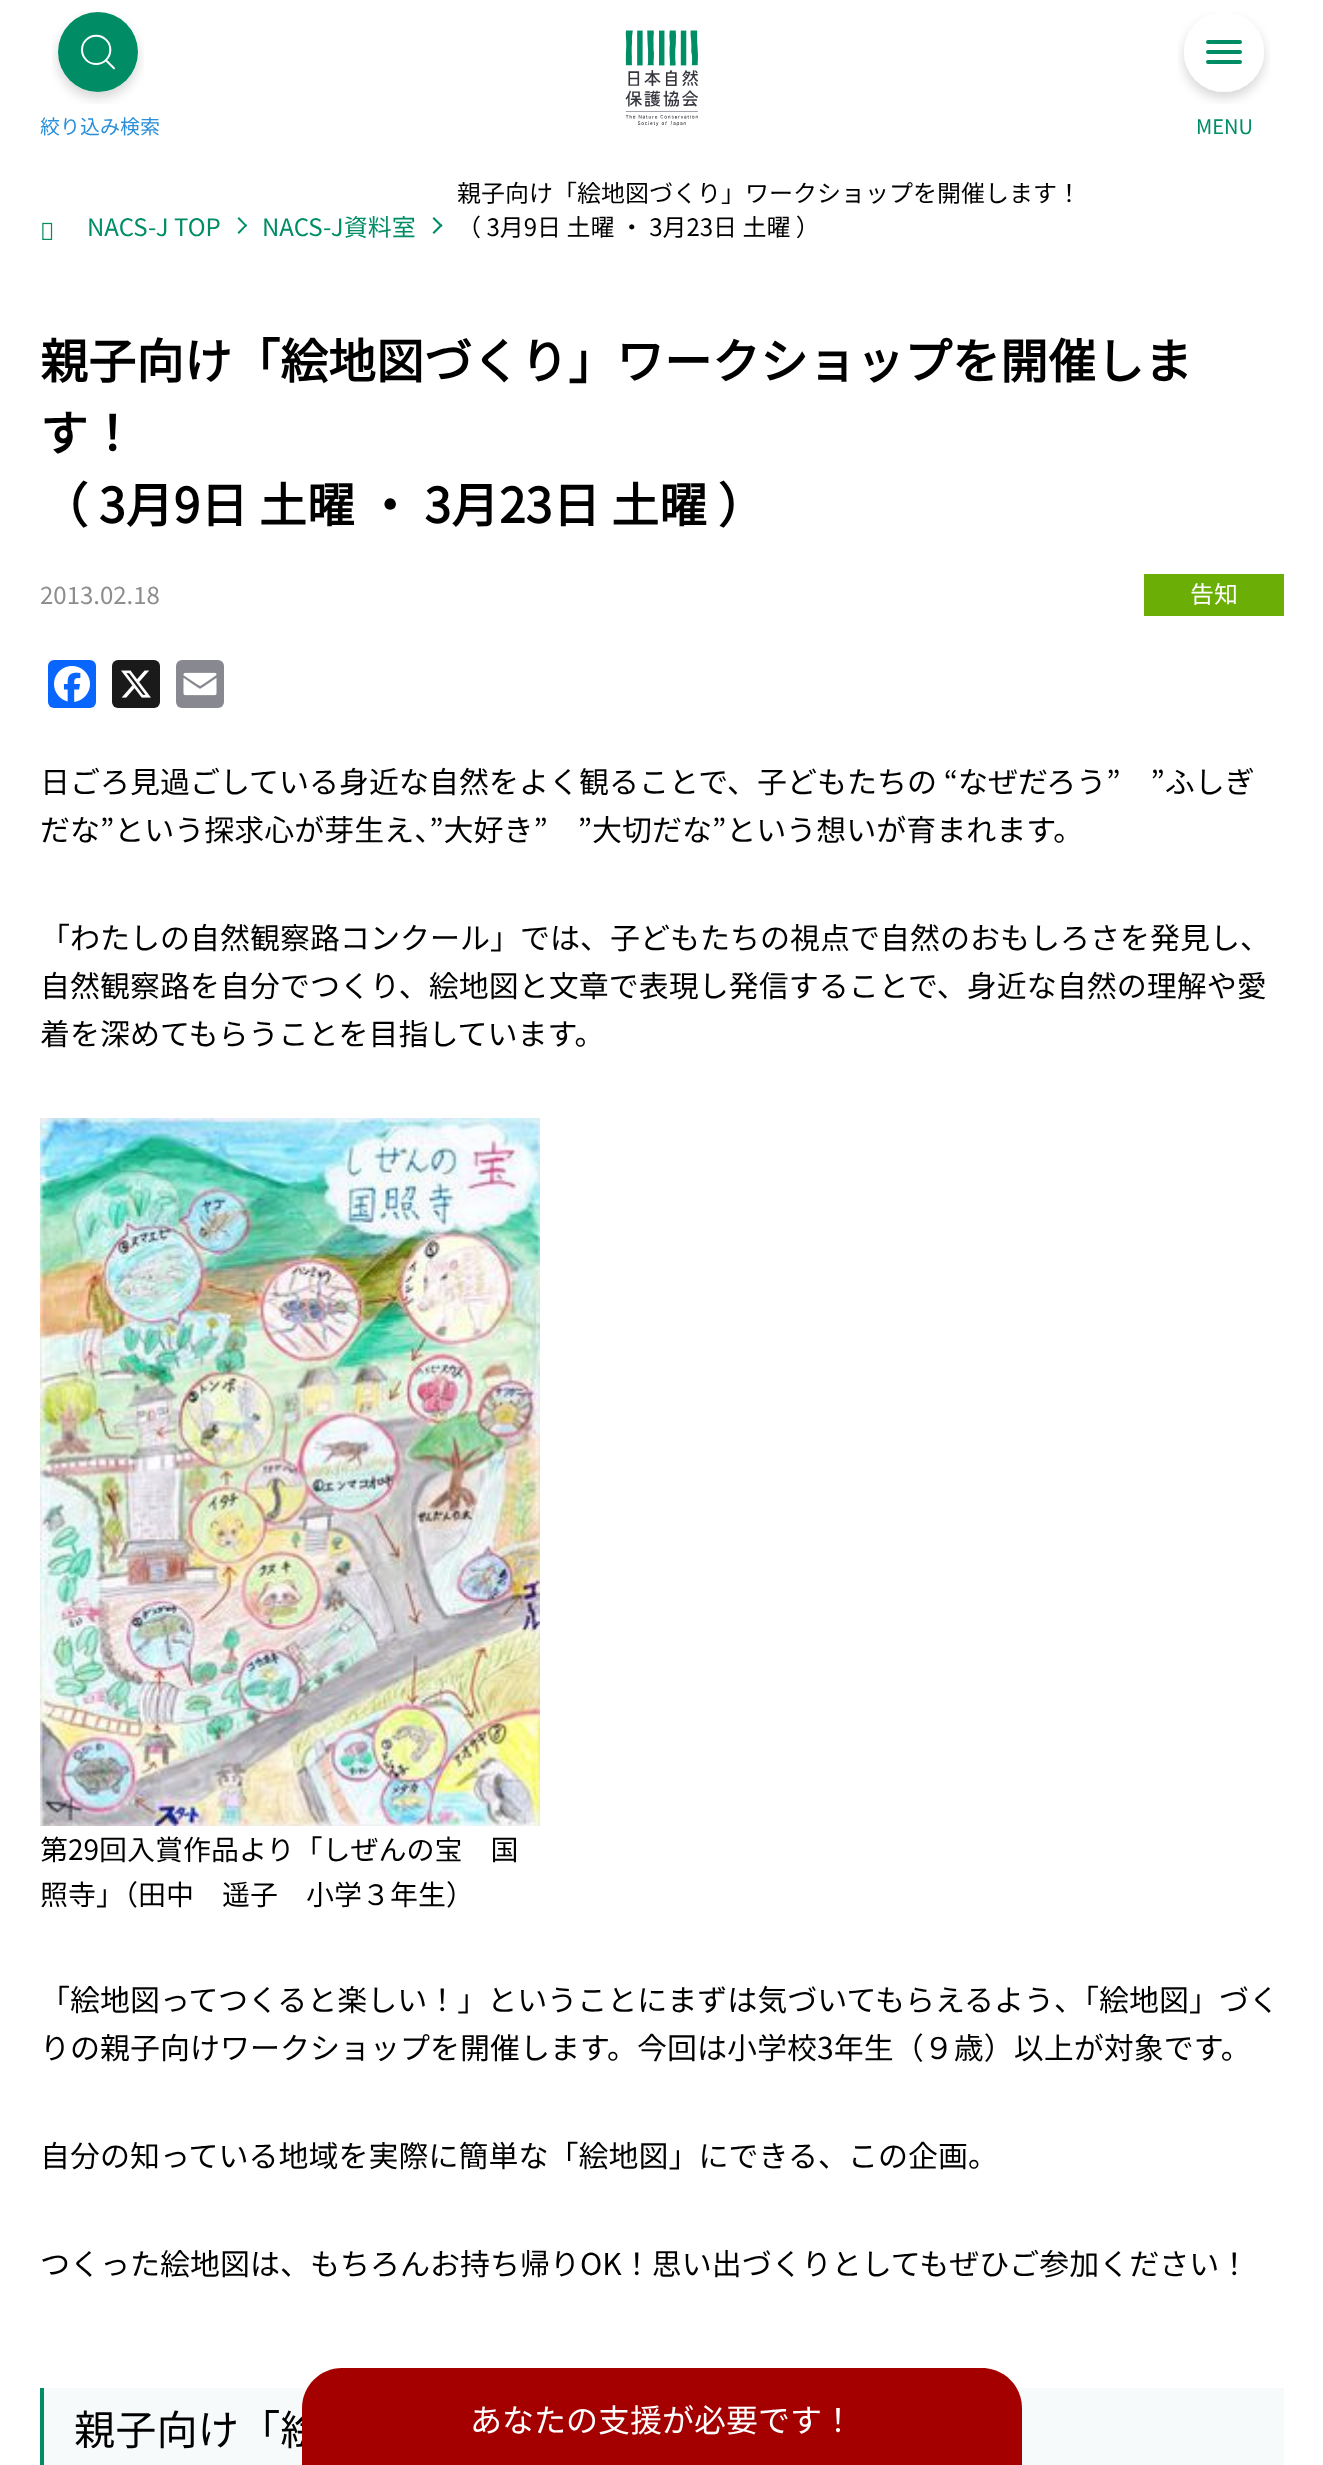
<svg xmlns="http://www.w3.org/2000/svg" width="1323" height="2465">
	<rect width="100%" height="100%" fill="#FFFFFF" />
	<image x="52" y="12" width="92" height="92" href="assets/img1.png" />
	<text x="40" y="134" font-family="Noto Sans JP" font-size="20" fill="#298FDB">絞り込み検索</text>
	<image x="625" y="30" width="73" height="96" href="assets/img2.png" />
	<image x="1178" y="12" width="92" height="92" href="assets/img3.png" />
	<text x="1196" y="134" font-family="Noto Sans JP" font-size="20" fill="#008D66">MENU</text>
	<image x="42" y="222" width="11" height="18" href="assets/img4.png" />
	<text x="87" y="236" font-family="Noto Sans JP" font-size="24" fill="#008D66">NACS-J TOP</text>
	<path d="M237.5 218.5L239 217L247 225.5L246 227Z" fill="#008D66" />
	<path d="M237.5 232.5L246 224L247 225.5L239 234Z" fill="#008D66" />
	<text x="262" y="236" font-family="Noto Sans JP" font-size="24" fill="#008D66">NACS-J資料室</text>
	<path d="M432.5 218.5L434 217L442.5 225.5L441 227Z" fill="#008D66" />
	<path d="M432.5 232.5L441 224L442.5 225.5L434 234Z" fill="#008D66" />
	<g font-family="Noto Sans JP" font-size="24" fill="#000000">
		<text x="457" y="202">親子向け「絵地図づくり」ワークショップを開催します！</text>
		<text x="457" y="236">（ 3月9日 土曜 ・ 3月23日 土曜 ）</text>
	</g>
	<g font-family="Noto Sans JP" font-size="48" font-weight="700" fill="#000000">
		<text x="40" y="379">親子向け「絵地図づくり」ワークショップを開催しま</text>
		<text x="40" y="451">す！</text>
		<text x="40" y="523">（ 3月9日 土曜 ・ 3月23日 土曜 ）</text>
	</g>
	<text x="40" y="604" font-family="Noto Sans JP" font-size="24" fill="#8D8D8D">2013.02.18</text>
	<rect x="1144" y="574" width="140" height="42" fill="#6BAE05" />
	<text x="1190" y="603" font-family="Noto Sans JP" font-size="24" fill="#FFFFFF">告知</text>
	<rect x="48" y="660" width="48" height="48" rx="6" fill="#0866FF" />
	<image x="54" y="666" width="36" height="36" href="assets/img5.png" />
	<rect x="112" y="660" width="48" height="48" rx="6" fill="#1A1A1A" />
	<image x="121" y="670" width="30" height="28" href="assets/img6.png" />
	<rect x="176" y="660" width="48" height="48" rx="6" fill="#888990" />
	<image x="183" y="672" width="34" height="24" href="assets/img7.png" />
	<g font-family="Noto Sans JP" font-size="30" fill="#000000">
		<text x="40" y="793">日ごろ見過ごしている身近な自然をよく観ることで、子どもたちの “なぜだろう”　”ふしぎ</text>
		<text x="40" y="841">だな”という探求心が芽生え、”大好き”　”大切だな”という想いが育まれます。</text>
		<text x="40" y="949">「わたしの自然観察路コンクール」では、子どもたちの視点で自然のおもしろさを発見し、</text>
		<text x="40" y="997">自然観察路を自分でつくり、絵地図と文章で表現し発信することで、身近な自然の理解や愛</text>
		<text x="40" y="1045">着を深めてもらうことを目指しています。</text>
	</g>
	<image x="40" y="1118" width="500" height="708" href="assets/img8.png" />
	<g font-family="Noto Sans JP" font-size="28" fill="#000000">
		<text x="40" y="1860">第29回入賞作品より「しぜんの宝　国</text>
		<text x="40" y="1905">照寺」（田中　遥子　小学３年生）</text>
	</g>
	<g font-family="Noto Sans JP" font-size="30" fill="#000000">
		<text x="40" y="2011">「絵地図ってつくると楽しい！」ということにまずは気づいてもらえるよう、「絵地図」づく</text>
		<text x="40" y="2059">りの親子向けワークショップを開催します。今回は小学校3年生（９歳）以上が対象です。</text>
		<text x="40" y="2167">自分の知っている地域を実際に簡単な「絵地図」にできる、この企画。</text>
		<text x="40" y="2275">つくった絵地図は、もちろんお持ち帰りOK！思い出づくりとしてもぜひご参加ください！</text>
	</g>
	<rect x="44" y="2388" width="1240" height="77" fill="#F7FAFA" />
	<rect x="40" y="2388" width="4" height="77" fill="#008E66" />
	<text x="74" y="2445" font-family="Noto Sans JP" font-size="41.25" fill="#000000">親子向け「絵</text>
	<path d="M342 2368H982C1004 2368 1022 2386 1022 2408V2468H302V2408C302 2386 320 2368 342 2368Z" fill="#A40000" />
	<text x="470" y="2432" font-family="Noto Sans JP" font-size="32" fill="#FFFFFF">あなたの支援が必要です！</text>
</svg>
